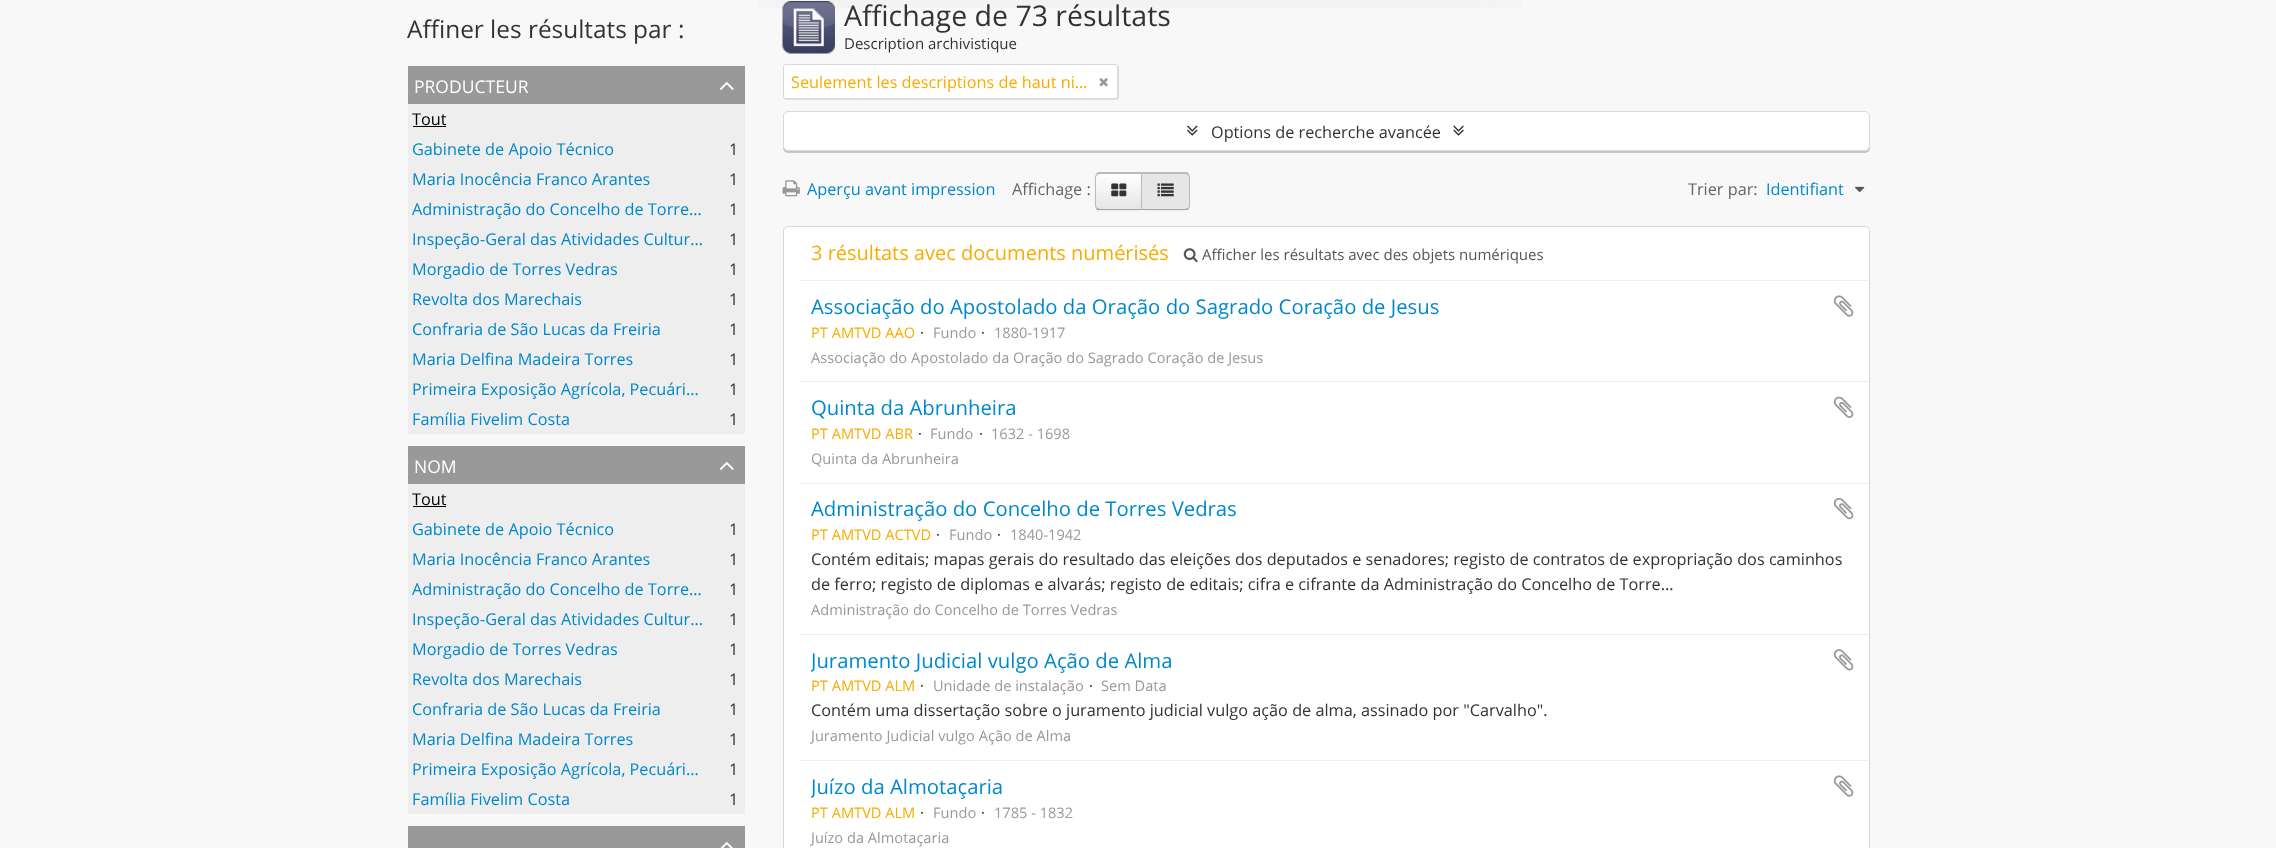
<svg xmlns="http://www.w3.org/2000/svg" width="2276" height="848">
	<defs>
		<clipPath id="clip1"><path d="M1100 173H1143V210H1100C1097 210 1095 208 1095 205V178C1095 175 1097 173 1100 173Z" /></clipPath>
		<linearGradient id="g1" gradientUnits="userSpaceOnUse" x1="1119" y1="174" x2="1119" y2="209"><stop offset="0" stop-color="#FFFFFF" /><stop offset="1" stop-color="#E6E6E6" /></linearGradient>
		<clipPath id="clip2"><rect x="811" y="648" width="1014" height="25" /></clipPath>
		<clipPath id="clip3"><rect x="811" y="774" width="1014" height="25" /></clipPath>
	</defs>
	<rect width="100%" height="100%" fill="#F8F8F8" />
	<image x="757" y="0" width="764" height="8" href="assets/img1.png" />
	<text x="407" y="38" font-family="Open Sans" font-size="24.4" fill="#333333">Affiner les résultats par :</text>
	<rect x="408" y="66" width="337" height="38" fill="#999999" />
	<text x="414" y="93" font-family="Open Sans" font-size="17.5" fill="#FFFFFF">PRODUCTEUR</text>
	<image x="719" y="82" width="15" height="8" href="assets/img2.png" />
	<rect x="408" y="104" width="337" height="330" fill="#EEEEEE" />
	<text x="412" y="125" font-family="Open Sans" font-size="16.25" fill="#000000">Tout</text>
	<rect x="413" y="126" width="33" height="1" fill="#000000" />
	<text x="412" y="155" font-family="Open Sans" font-size="16.25" fill="#0088CC">Gabinete de Apoio Técnico</text>
	<text x="729" y="155" font-family="Open Sans" font-size="16.25" fill="#333333">1</text>
	<text x="412" y="185" font-family="Open Sans" font-size="16.25" fill="#0088CC">Maria Inocência Franco Arantes</text>
	<text x="729" y="185" font-family="Open Sans" font-size="16.25" fill="#333333">1</text>
	<text x="412" y="215" font-family="Open Sans" font-size="16.25" fill="#0088CC">Administração do Concelho de Torre…</text>
	<text x="729" y="215" font-family="Open Sans" font-size="16.25" fill="#333333">1</text>
	<text x="412" y="245" font-family="Open Sans" font-size="16.25" fill="#0088CC">Inspeção-Geral das Atividades Cultur…</text>
	<text x="729" y="245" font-family="Open Sans" font-size="16.25" fill="#333333">1</text>
	<text x="412" y="275" font-family="Open Sans" font-size="16.25" fill="#0088CC">Morgadio de Torres Vedras</text>
	<text x="729" y="275" font-family="Open Sans" font-size="16.25" fill="#333333">1</text>
	<text x="412" y="305" font-family="Open Sans" font-size="16.25" fill="#0088CC">Revolta dos Marechais</text>
	<text x="729" y="305" font-family="Open Sans" font-size="16.25" fill="#333333">1</text>
	<text x="412" y="335" font-family="Open Sans" font-size="16.25" fill="#0088CC">Confraria de São Lucas da Freiria</text>
	<text x="729" y="335" font-family="Open Sans" font-size="16.25" fill="#333333">1</text>
	<text x="412" y="365" font-family="Open Sans" font-size="16.25" fill="#0088CC">Maria Delfina Madeira Torres</text>
	<text x="729" y="365" font-family="Open Sans" font-size="16.25" fill="#333333">1</text>
	<text x="412" y="395" font-family="Open Sans" font-size="16.25" fill="#0088CC">Primeira Exposição Agrícola, Pecuári…</text>
	<text x="729" y="395" font-family="Open Sans" font-size="16.25" fill="#333333">1</text>
	<text x="412" y="425" font-family="Open Sans" font-size="16.25" fill="#0088CC">Família Fivelim Costa</text>
	<text x="729" y="425" font-family="Open Sans" font-size="16.25" fill="#333333">1</text>
	<rect x="408" y="446" width="337" height="38" fill="#999999" />
	<text x="414" y="473" font-family="Open Sans" font-size="17.5" fill="#FFFFFF">NOM</text>
	<image x="719" y="462" width="15" height="8" href="assets/img2.png" />
	<rect x="408" y="484" width="337" height="330" fill="#EEEEEE" />
	<text x="412" y="505" font-family="Open Sans" font-size="16.25" fill="#000000">Tout</text>
	<rect x="413" y="506" width="33" height="1" fill="#000000" />
	<text x="412" y="535" font-family="Open Sans" font-size="16.25" fill="#0088CC">Gabinete de Apoio Técnico</text>
	<text x="729" y="535" font-family="Open Sans" font-size="16.25" fill="#333333">1</text>
	<text x="412" y="565" font-family="Open Sans" font-size="16.25" fill="#0088CC">Maria Inocência Franco Arantes</text>
	<text x="729" y="565" font-family="Open Sans" font-size="16.25" fill="#333333">1</text>
	<text x="412" y="595" font-family="Open Sans" font-size="16.25" fill="#0088CC">Administração do Concelho de Torre…</text>
	<text x="729" y="595" font-family="Open Sans" font-size="16.25" fill="#333333">1</text>
	<text x="412" y="625" font-family="Open Sans" font-size="16.25" fill="#0088CC">Inspeção-Geral das Atividades Cultur…</text>
	<text x="729" y="625" font-family="Open Sans" font-size="16.25" fill="#333333">1</text>
	<text x="412" y="655" font-family="Open Sans" font-size="16.25" fill="#0088CC">Morgadio de Torres Vedras</text>
	<text x="729" y="655" font-family="Open Sans" font-size="16.25" fill="#333333">1</text>
	<text x="412" y="685" font-family="Open Sans" font-size="16.25" fill="#0088CC">Revolta dos Marechais</text>
	<text x="729" y="685" font-family="Open Sans" font-size="16.25" fill="#333333">1</text>
	<text x="412" y="715" font-family="Open Sans" font-size="16.25" fill="#0088CC">Confraria de São Lucas da Freiria</text>
	<text x="729" y="715" font-family="Open Sans" font-size="16.25" fill="#333333">1</text>
	<text x="412" y="745" font-family="Open Sans" font-size="16.25" fill="#0088CC">Maria Delfina Madeira Torres</text>
	<text x="729" y="745" font-family="Open Sans" font-size="16.25" fill="#333333">1</text>
	<text x="412" y="775" font-family="Open Sans" font-size="16.25" fill="#0088CC">Primeira Exposição Agrícola, Pecuári…</text>
	<text x="729" y="775" font-family="Open Sans" font-size="16.25" fill="#333333">1</text>
	<text x="412" y="805" font-family="Open Sans" font-size="16.25" fill="#0088CC">Família Fivelim Costa</text>
	<text x="729" y="805" font-family="Open Sans" font-size="16.25" fill="#333333">1</text>
	<rect x="408" y="826" width="337" height="22" fill="#999999" />
	<image x="720" y="842" width="13" height="6" href="assets/img3.png" />
	<image x="782" y="1" width="53" height="53" href="assets/img4.png" />
	<text x="844" y="26" font-family="Open Sans" font-size="28.5" fill="#333333">Affichage de 73 résultats</text>
	<text x="844" y="49" font-family="Open Sans" font-size="15" fill="#333333">Description archivistique</text>
	<rect x="784" y="65" width="335" height="35" rx="2.5" fill="#000000" fill-opacity="0.1" filter="blur(0.5px)" />
	<rect x="783.5" y="64.5" width="334" height="34" rx="2" fill="#FFFFFF" stroke="#D9D9D9" />
	<text x="791" y="88" font-family="Open Sans" font-size="16.25" fill="#F6AC00">Seulement les descriptions de haut ni…</text>
	<image x="1099" y="78" width="9" height="9" href="assets/img5.png" />
	<rect x="783" y="113" width="1087" height="40" rx="5" fill="#000000" fill-opacity="0.2" filter="blur(0.5px)" />
	<rect x="783.5" y="111.5" width="1086" height="39" rx="4.5" fill="#FFFFFF" stroke="#D9D9D9" />
	<image x="1187" y="125" width="11" height="11" href="assets/img6.png" />
	<text x="1211" y="138" font-family="Open Sans" font-size="16.25" fill="#333333">Options de recherche avancée</text>
	<image x="1453" y="125" width="11" height="11" href="assets/img7.png" />
	<image x="782" y="180" width="18" height="17" href="assets/img8.png" />
	<text x="807" y="195" font-family="Open Sans" font-size="16.25" fill="#0088CC">Aperçu avant impression</text>
	<text x="1012" y="195" font-family="Open Sans" font-size="16.25" fill="#666666">Affichage :</text>
	<rect x="1095" y="174" width="48" height="37" rx="5" fill="#000000" fill-opacity="0.05" filter="blur(1px)" />
	<g clip-path="url(#clip1)">
		<rect x="1095" y="174" width="46" height="35" fill="url(#g1)" />
	</g>
	<path d="M1100 174L1097 175L1096 174L1098 172H1142L1141 174Z" fill="#BBBBBB" />
	<path d="M1100 210H1142L1141 208V209H1100C1099 209 1098 208 1097 208L1096 209C1097 210 1098 210 1100 210Z" fill="#A2A2A2" />
	<path d="M1095 178V205C1095 206.5 1095.5 208 1096.5 208.5L1097 208C1096.5 207 1096 206 1096 205V178C1096 176.5 1096.5 175.5 1097.5 175L1096.5 174C1095.5 175 1095 176.5 1095 178Z" fill="#BBBBBB" />
	<image x="1111" y="183" width="16" height="14" href="assets/img9.png" />
	<rect x="1141" y="174" width="49" height="37" rx="5" fill="#000000" fill-opacity="0.05" filter="blur(1px)" />
	<path d="M1141 173H1185C1188 173 1190 175 1190 178V205C1190 208 1188 210 1185 210H1141Z" fill="#E6E6E6" />
	<path d="M1141 172H1187L1189 174L1188 175L1185 174H1143Z" fill="#BBBBBB" />
	<path d="M1190 205V178C1190 176.5 1189.5 175 1188.5 174L1187.5 175C1188.5 175.5 1189 176.5 1189 178V205C1189 206 1188.5 207 1188 208L1188.5 208.5C1189.5 208 1190 206.5 1190 205Z" fill="#BBBBBB" />
	<path d="M1141 210H1185C1186 210 1188 210 1189 209L1188 208C1187 208 1186 209 1185 209H1142Z" fill="#A2A2A2" />
	<path d="M1142 174H1143L1141 172.5V210L1142 209Z" fill="#BBBBBB" />
	<image x="1157" y="183" width="17" height="14" href="assets/img10.png" />
	<text x="1688" y="195" font-family="Open Sans" font-size="16.25" fill="#666666">Trier par:</text>
	<text x="1766" y="195" font-family="Open Sans" font-size="16.25" fill="#0088CC">Identifiant</text>
	<image x="1855" y="186" width="10" height="6" href="assets/img11.png" />
	<rect x="783" y="228" width="1087" height="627" rx="5" fill="#000000" fill-opacity="0.2" filter="blur(0.5px)" />
	<rect x="783.5" y="226.5" width="1086" height="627" rx="4.5" fill="#FFFFFF" stroke="#D9D9D9" />
	<rect x="799" y="280" width="1070" height="1" fill="#EEEEEE" />
	<text x="811" y="260" font-family="Open Sans" font-size="20" fill="#F6AC00">3 résultats avec documents numérisés</text>
	<image x="1183" y="248" width="15" height="15" href="assets/img12.png" />
	<text x="1202" y="260" font-family="Open Sans" font-size="15" fill="#555555">Afficher les résultats avec des objets numériques</text>
	<rect x="799" y="381" width="1070" height="1" fill="#EEEEEE" />
	<text x="811" y="314" font-family="Open Sans" font-size="20.3" fill="#0088CC">Associação do Apostolado da Oração do Sagrado Coração de Jesus</text>
	<image x="1833" y="295" width="21" height="22" href="assets/img13.png" />
	<text x="811" y="338" font-family="Open Sans" font-size="14.6" fill="#F6AC00">PT AMTVD AAO</text>
	<text x="920" y="338" font-family="Open Sans" font-size="14.6" fill="#000000">·</text>
	<text x="933" y="338" font-family="Open Sans" font-size="14.6" fill="#999999">Fundo</text>
	<text x="981" y="338" font-family="Open Sans" font-size="14.6" fill="#000000">·</text>
	<g font-family="Open Sans" font-size="14.6" fill="#999999">
		<text x="994" y="338">1880-1917</text>
		<text x="811" y="363">Associação do Apostolado da Oração do Sagrado Coração de Jesus</text>
	</g>
	<rect x="799" y="483" width="1070" height="1" fill="#EEEEEE" />
	<text x="811" y="415" font-family="Open Sans" font-size="20.3" fill="#0088CC">Quinta da Abrunheira</text>
	<image x="1833" y="396" width="21" height="22" href="assets/img14.png" />
	<text x="811" y="439" font-family="Open Sans" font-size="14.6" fill="#F6AC00">PT AMTVD ABR</text>
	<text x="918" y="439" font-family="Open Sans" font-size="14.6" fill="#000000">·</text>
	<text x="930" y="439" font-family="Open Sans" font-size="14.6" fill="#999999">Fundo</text>
	<text x="979" y="439" font-family="Open Sans" font-size="14.6" fill="#000000">·</text>
	<g font-family="Open Sans" font-size="14.6" fill="#999999">
		<text x="991" y="439">1632 - 1698</text>
		<text x="811" y="464">Quinta da Abrunheira</text>
	</g>
	<rect x="799" y="634" width="1070" height="1" fill="#EEEEEE" />
	<text x="811" y="516" font-family="Open Sans" font-size="20.3" fill="#0088CC">Administração do Concelho de Torres Vedras</text>
	<image x="1833" y="497" width="21" height="23" href="assets/img15.png" />
	<text x="811" y="540" font-family="Open Sans" font-size="14.6" fill="#F6AC00">PT AMTVD ACTVD</text>
	<text x="936" y="540" font-family="Open Sans" font-size="14.6" fill="#000000">·</text>
	<text x="949" y="540" font-family="Open Sans" font-size="14.6" fill="#999999">Fundo</text>
	<text x="997" y="540" font-family="Open Sans" font-size="14.6" fill="#000000">·</text>
	<text x="1010" y="540" font-family="Open Sans" font-size="14.6" fill="#999999">1840-1942</text>
	<g font-family="Open Sans" font-size="16.25" fill="#333333">
		<text x="811" y="565">Contém editais; mapas gerais do resultado das eleições dos deputados e senadores; registo de contratos de expropriação dos caminhos</text>
		<text x="811" y="590">de ferro; registo de diplomas e alvarás; registo de editais; cifra e cifrante da Administração do Concelho de Torre...</text>
	</g>
	<text x="811" y="615" font-family="Open Sans" font-size="14.6" fill="#999999">Administração do Concelho de Torres Vedras</text>
	<rect x="799" y="760" width="1070" height="1" fill="#EEEEEE" />
	<g clip-path="url(#clip2)">
		<text x="811" y="668" font-family="Open Sans" font-size="20.3" fill="#0088CC">Juramento Judicial vulgo Ação de Alma</text>
	</g>
	<image x="1833" y="649" width="21" height="22" href="assets/img16.png" />
	<text x="811" y="691" font-family="Open Sans" font-size="14.6" fill="#F6AC00">PT AMTVD ALM</text>
	<text x="920" y="691" font-family="Open Sans" font-size="14.6" fill="#000000">·</text>
	<text x="933" y="691" font-family="Open Sans" font-size="14.6" fill="#999999">Unidade de instalação</text>
	<text x="1089" y="691" font-family="Open Sans" font-size="14.6" fill="#000000">·</text>
	<text x="1101" y="691" font-family="Open Sans" font-size="14.6" fill="#999999">Sem Data</text>
	<text x="811" y="716" font-family="Open Sans" font-size="16.25" fill="#333333">Contém uma dissertação sobre o juramento judicial vulgo ação de alma, assinado por "Carvalho".</text>
	<text x="811" y="741" font-family="Open Sans" font-size="14.6" fill="#999999">Juramento Judicial vulgo Ação de Alma</text>
	<g clip-path="url(#clip3)">
		<text x="811" y="794" font-family="Open Sans" font-size="20.3" fill="#0088CC">Juízo da Almotaçaria</text>
	</g>
	<image x="1833" y="775" width="21" height="22" href="assets/img13.png" />
	<text x="811" y="818" font-family="Open Sans" font-size="14.6" fill="#F6AC00">PT AMTVD ALM</text>
	<text x="920" y="818" font-family="Open Sans" font-size="14.6" fill="#000000">·</text>
	<text x="933" y="818" font-family="Open Sans" font-size="14.6" fill="#999999">Fundo</text>
	<text x="981" y="818" font-family="Open Sans" font-size="14.6" fill="#000000">·</text>
	<g font-family="Open Sans" font-size="14.6" fill="#999999">
		<text x="994" y="818">1785 - 1832</text>
		<text x="811" y="843">Juízo da Almotaçaria</text>
	</g>
</svg>
